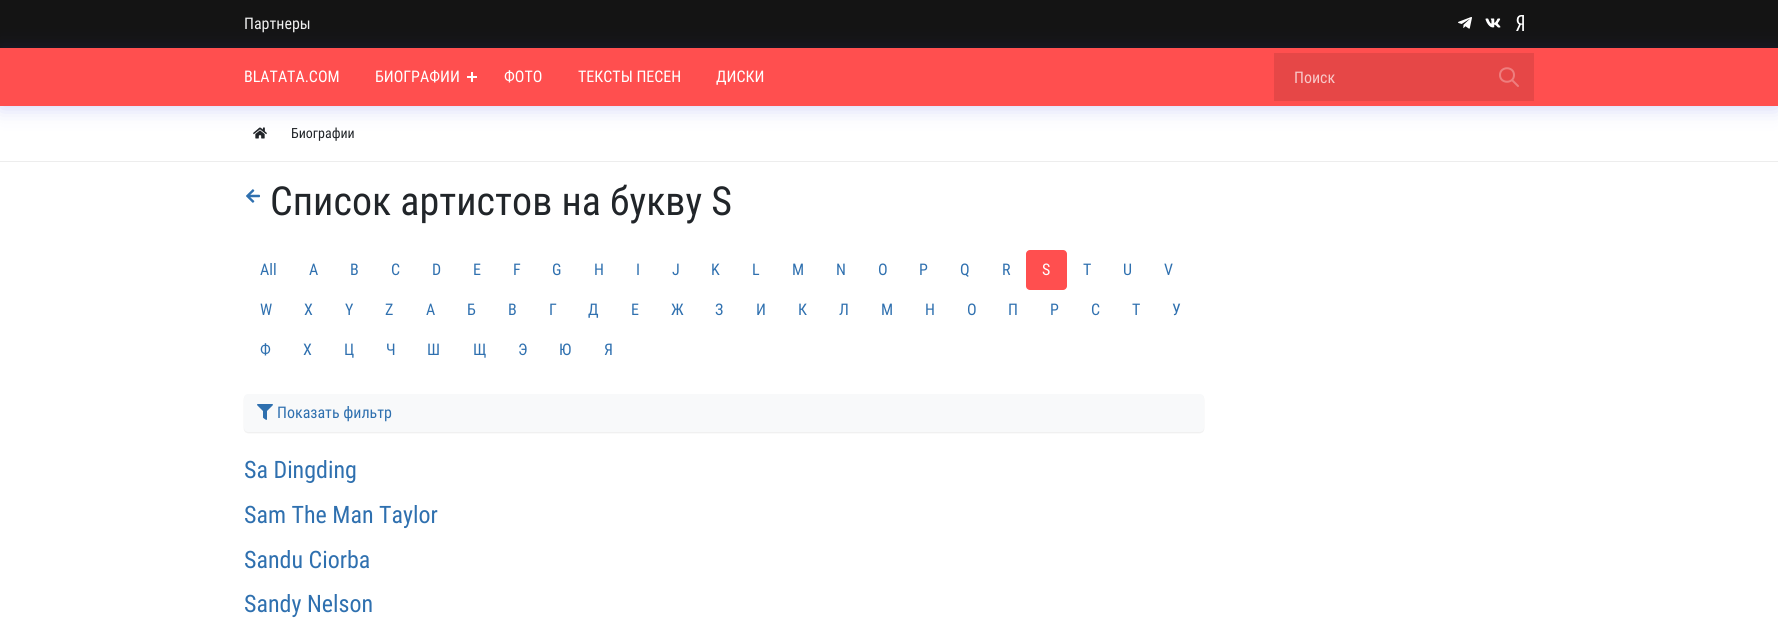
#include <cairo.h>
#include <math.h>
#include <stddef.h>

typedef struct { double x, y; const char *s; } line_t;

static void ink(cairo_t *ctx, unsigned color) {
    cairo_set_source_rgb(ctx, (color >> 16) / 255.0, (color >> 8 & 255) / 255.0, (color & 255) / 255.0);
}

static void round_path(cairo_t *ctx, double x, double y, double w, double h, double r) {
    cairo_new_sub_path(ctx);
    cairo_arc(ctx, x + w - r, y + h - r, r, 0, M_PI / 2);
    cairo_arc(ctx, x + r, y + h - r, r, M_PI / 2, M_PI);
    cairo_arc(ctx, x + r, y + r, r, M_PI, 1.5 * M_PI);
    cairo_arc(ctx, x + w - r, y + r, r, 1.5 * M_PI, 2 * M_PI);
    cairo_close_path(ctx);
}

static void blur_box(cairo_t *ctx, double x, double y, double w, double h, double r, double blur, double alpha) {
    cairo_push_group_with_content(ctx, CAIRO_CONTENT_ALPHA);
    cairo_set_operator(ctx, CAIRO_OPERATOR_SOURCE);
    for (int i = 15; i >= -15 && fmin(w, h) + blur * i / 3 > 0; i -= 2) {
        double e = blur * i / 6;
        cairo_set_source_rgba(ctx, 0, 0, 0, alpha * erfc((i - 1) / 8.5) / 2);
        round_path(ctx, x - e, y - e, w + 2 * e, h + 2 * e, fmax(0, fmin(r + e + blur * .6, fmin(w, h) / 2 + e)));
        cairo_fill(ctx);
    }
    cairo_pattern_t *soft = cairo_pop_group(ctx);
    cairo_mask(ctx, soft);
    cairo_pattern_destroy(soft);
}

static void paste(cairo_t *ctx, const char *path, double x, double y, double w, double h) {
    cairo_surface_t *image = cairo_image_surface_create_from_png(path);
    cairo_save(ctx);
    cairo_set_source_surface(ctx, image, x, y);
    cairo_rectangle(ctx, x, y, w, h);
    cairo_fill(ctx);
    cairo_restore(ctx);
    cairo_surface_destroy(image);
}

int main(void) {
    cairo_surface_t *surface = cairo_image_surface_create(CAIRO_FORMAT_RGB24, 1778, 627);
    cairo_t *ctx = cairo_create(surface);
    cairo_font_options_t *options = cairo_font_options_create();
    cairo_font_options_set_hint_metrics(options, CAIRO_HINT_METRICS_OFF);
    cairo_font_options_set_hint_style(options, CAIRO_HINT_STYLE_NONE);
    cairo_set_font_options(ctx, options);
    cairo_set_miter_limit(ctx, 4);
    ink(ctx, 0xFFFFFF);
    cairo_paint(ctx);
    ink(ctx, 0x141414);
    cairo_rectangle(ctx, 0, 0, 1778, 48);
    cairo_fill(ctx);
    paste(ctx, "media/4.png", 253, 127, 14, 12);
    ink(ctx, 0x2E38DC);
    blur_box(ctx, 0, 51, 1778, 58, 0, 10, 0.2);
    cairo_select_font_face(ctx, "Roboto Condensed", CAIRO_FONT_SLANT_NORMAL, CAIRO_FONT_WEIGHT_NORMAL);
    cairo_set_font_size(ctx, 16);
    ink(ctx, 0xF0F0F0);
    cairo_move_to(ctx, 244, 29);
    cairo_show_text(ctx, "Партнеры");
    paste(ctx, "media/1.png", 1458, 17, 14, 12);
    paste(ctx, "media/2.png", 1485, 18, 16, 10);
    paste(ctx, "media/3.png", 1516, 15, 8, 16);
    ink(ctx, 0xFF4F4F);
    cairo_rectangle(ctx, 0, 48, 1778, 58);
    cairo_fill(ctx);
    ink(ctx, 0xFFFFFF);
    cairo_move_to(ctx, 244, 82);
    cairo_show_text(ctx, "BLATATA.COM");
    cairo_move_to(ctx, 375, 82);
    cairo_show_text(ctx, "БИОГРАФИИ");
    cairo_rectangle(ctx, 471, 72, 2, 10);
    cairo_fill(ctx);
    cairo_rectangle(ctx, 467, 76, 10, 2);
    cairo_fill(ctx);
    {
        static const line_t items[] = {
            {504, 82, "ФОТО"},
            {578, 82, "ТЕКСТЫ ПЕСЕН"},
            {716, 82, "ДИСКИ"},
        };
        for (size_t i = 0; i < sizeof items / sizeof *items; i++) {
            cairo_move_to(ctx, items[i].x, items[i].y);
            cairo_show_text(ctx, items[i].s);
        }
    }
    ink(ctx, 0xE64747);
    cairo_rectangle(ctx, 1274, 53, 260, 48);
    cairo_fill(ctx);
    ink(ctx, 0xF8C8C8);
    cairo_move_to(ctx, 1294, 83);
    cairo_show_text(ctx, "Поиск");
    cairo_new_path(ctx);
    cairo_move_to(ctx, 1518, 86);
    cairo_line_to(ctx, 1512, 80);
    cairo_move_to(ctx, 1514, 75);
    cairo_curve_to(ctx, 1514, 84, 1500, 84, 1500, 75);
    cairo_curve_to(ctx, 1500, 66, 1514, 66, 1514, 75);
    cairo_close_path(ctx);
    ink(ctx, 0xEE7E7E);
    cairo_set_line_cap(ctx, CAIRO_LINE_CAP_ROUND);
    cairo_set_line_join(ctx, CAIRO_LINE_JOIN_ROUND);
    cairo_stroke(ctx);
    ink(ctx, 0xEDEDED);
    cairo_rectangle(ctx, 0, 161, 1778, 1);
    cairo_fill(ctx);
    cairo_set_font_size(ctx, 14);
    ink(ctx, 0x212529);
    cairo_move_to(ctx, 291, 138);
    cairo_show_text(ctx, "Биографии");
    paste(ctx, "media/5.png", 246, 189, 14, 14);
    cairo_set_font_size(ctx, 40);
    cairo_move_to(ctx, 270, 215);
    cairo_show_text(ctx, "Список артистов на букву S");
    cairo_set_font_size(ctx, 16);
    ink(ctx, 0x2F70AF);
    {
        static const line_t items[] = {
            {260, 275, "All"},
            {309, 275, "A"},
            {350, 275, "B"},
            {391, 275, "C"},
            {432, 275, "D"},
            {473, 275, "E"},
            {513, 275, "F"},
            {552, 275, "G"},
            {594, 275, "H"},
            {636, 275, "I"},
            {672, 275, "J"},
            {711, 275, "K"},
            {752, 275, "L"},
            {792, 275, "M"},
            {836, 275, "N"},
            {878, 275, "O"},
            {919, 275, "P"},
            {960, 275, "Q"},
            {1002, 275, "R"},
        };
        for (size_t i = 0; i < sizeof items / sizeof *items; i++) {
            cairo_move_to(ctx, items[i].x, items[i].y);
            cairo_show_text(ctx, items[i].s);
        }
    }
    ink(ctx, 0xFF4F4F);
    round_path(ctx, 1026, 250, 41, 40, 4);
    cairo_fill(ctx);
    ink(ctx, 0xFFFFFF);
    cairo_move_to(ctx, 1042, 275);
    cairo_show_text(ctx, "S");
    ink(ctx, 0x2F70AF);
    {
        static const line_t items[] = {
            {1083, 275, "T"},
            {1123, 275, "U"},
            {1164, 275, "V"},
            {260, 315, "W"},
            {304, 315, "X"},
            {345, 315, "Y"},
            {385, 315, "Z"},
            {426, 315, "А"},
            {467, 315, "Б"},
            {508, 315, "В"},
            {549, 315, "Г"},
            {588, 315, "Д"},
            {631, 315, "Е"},
            {671, 315, "Ж"},
            {715, 315, "З"},
            {756, 315, "И"},
            {798, 315, "К"},
            {839, 315, "Л"},
            {881, 315, "М"},
            {925, 315, "Н"},
            {967, 315, "О"},
            {1008, 315, "П"},
            {1050, 315, "Р"},
            {1091, 315, "С"},
            {1132, 315, "Т"},
            {1172, 315, "У"},
            {260, 355, "Ф"},
            {303, 355, "Х"},
            {344, 355, "Ц"},
            {386, 355, "Ч"},
            {427, 355, "Ш"},
            {473, 355, "Щ"},
            {518, 355, "Э"},
            {559, 355, "Ю"},
            {604, 355, "Я"},
        };
        for (size_t i = 0; i < sizeof items / sizeof *items; i++) {
            cairo_move_to(ctx, items[i].x, items[i].y);
            cairo_show_text(ctx, items[i].s);
        }
    }
    ink(ctx, 0x000000);
    blur_box(ctx, 244, 395, 960, 38, 4, 0.5, 0.07);
    ink(ctx, 0xF8F9FA);
    round_path(ctx, 244, 394, 960, 38, 4);
    cairo_fill(ctx);
    paste(ctx, "media/6.png", 257, 404, 16, 16);
    ink(ctx, 0x2F70AF);
    cairo_move_to(ctx, 277, 418);
    cairo_show_text(ctx, "Показать фильтр");
    cairo_set_font_size(ctx, 24);
    {
        static const line_t items[] = {
            {244, 478, "Sa Dingding"},
            {244, 523, "Sam The Man Taylor"},
            {244, 568, "Sandu Ciorba"},
            {244, 612, "Sandy Nelson"},
        };
        for (size_t i = 0; i < sizeof items / sizeof *items; i++) {
            cairo_move_to(ctx, items[i].x, items[i].y);
            cairo_show_text(ctx, items[i].s);
        }
    }
    cairo_surface_write_to_png(surface, "image.png");
    cairo_font_options_destroy(options);
    cairo_destroy(ctx);
    cairo_surface_destroy(surface);
    return 0;
}
